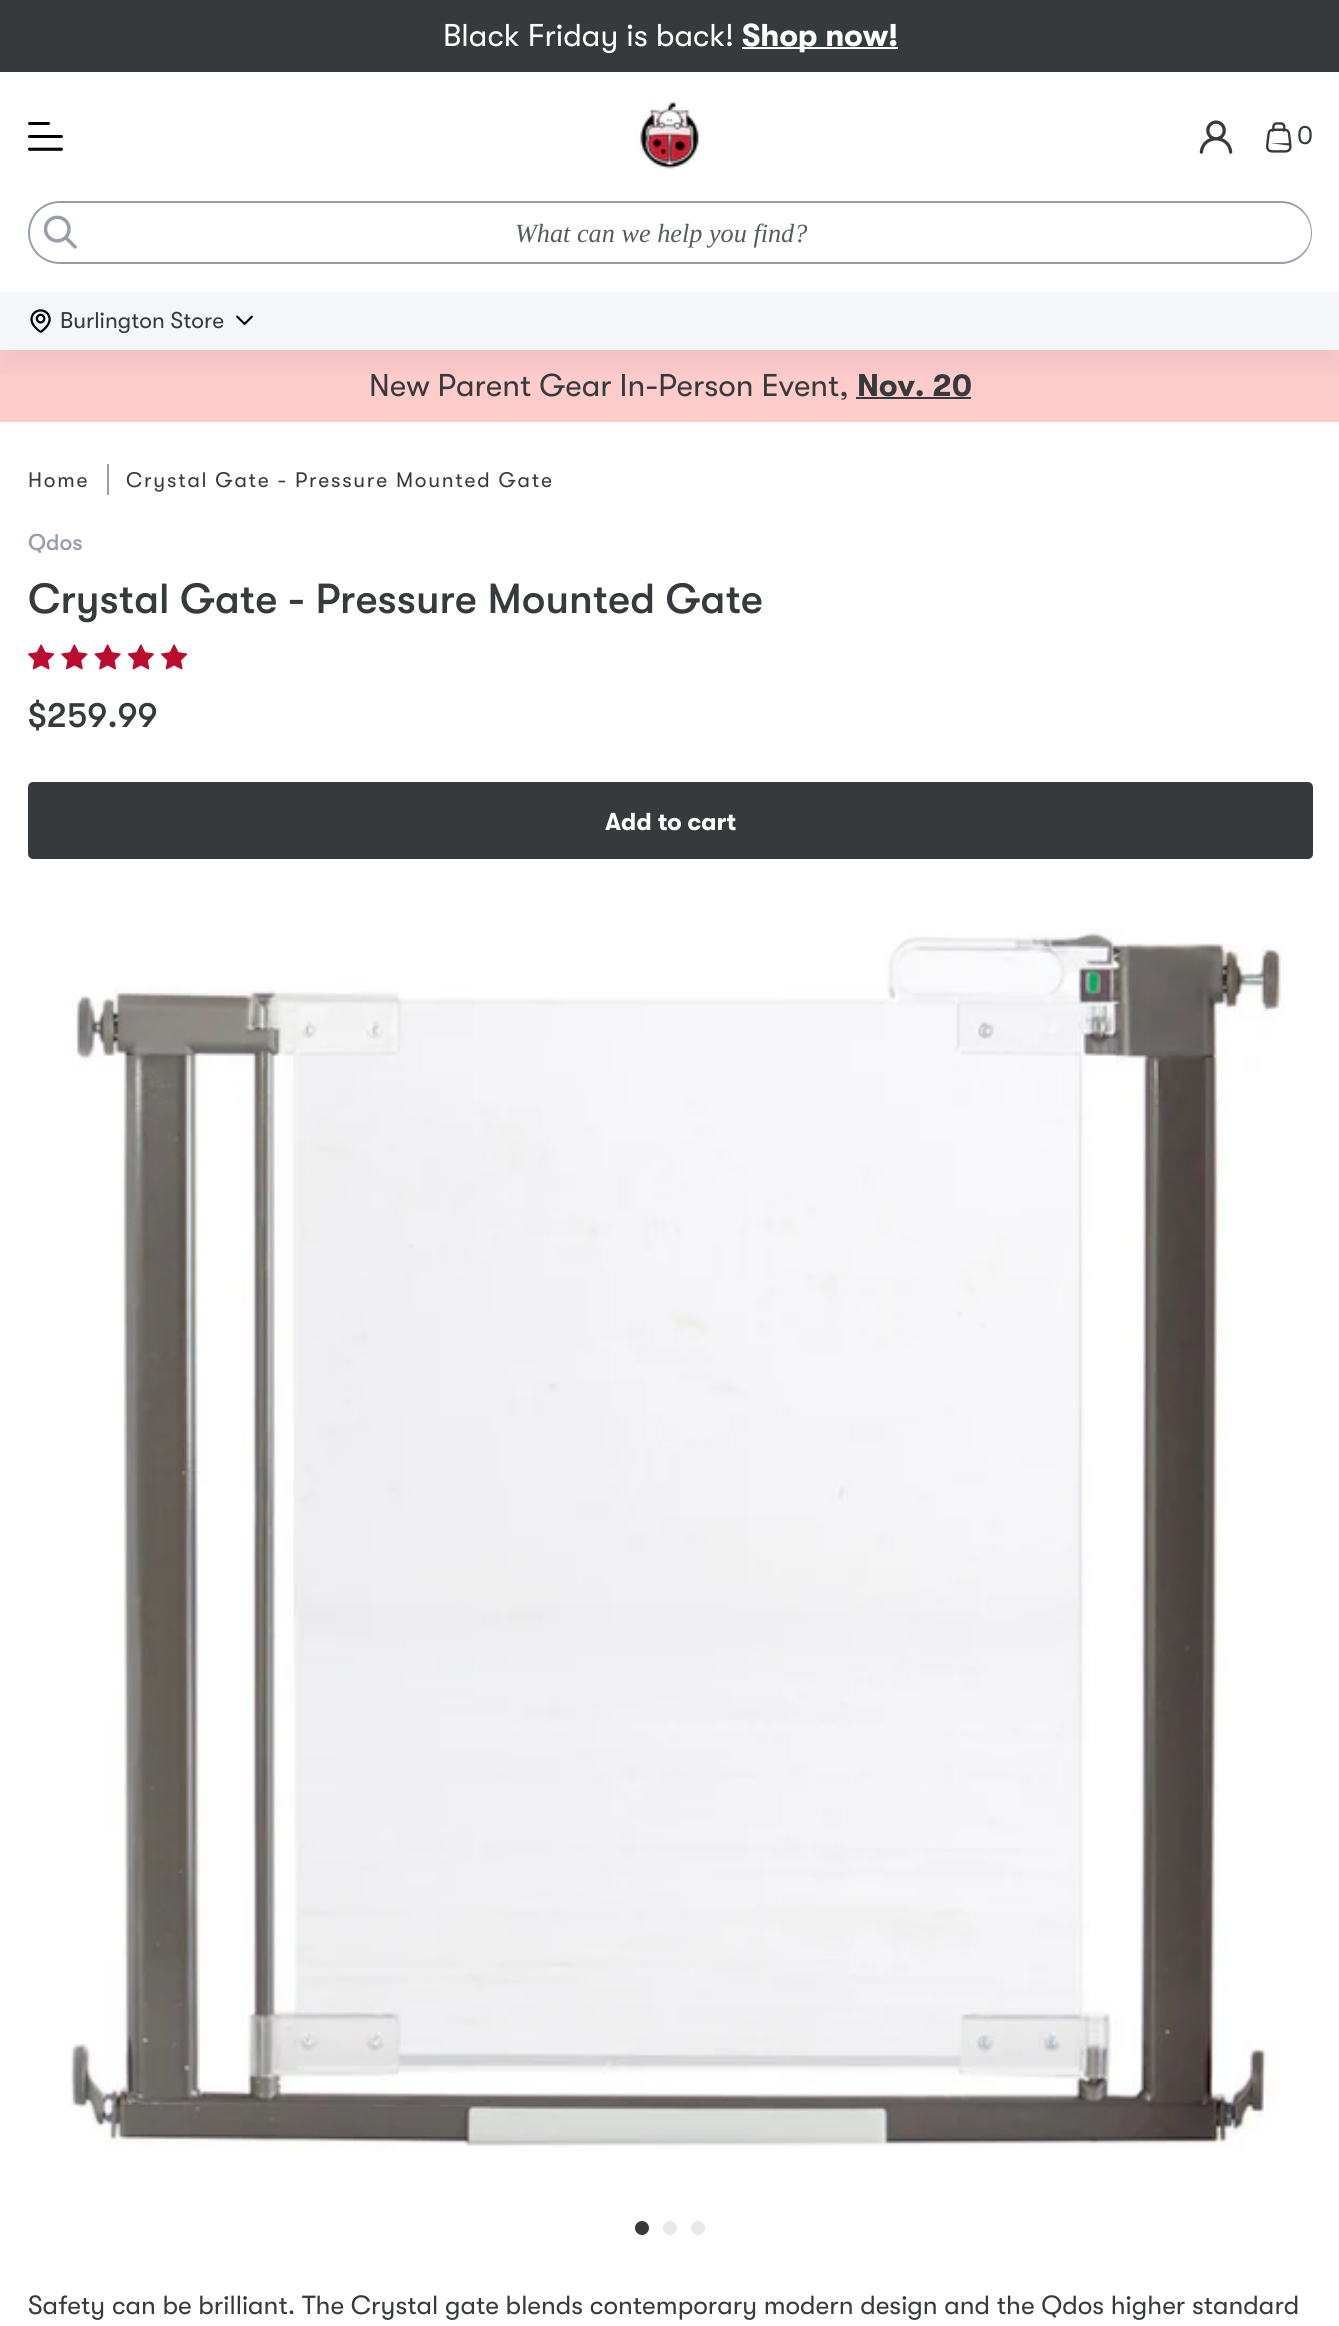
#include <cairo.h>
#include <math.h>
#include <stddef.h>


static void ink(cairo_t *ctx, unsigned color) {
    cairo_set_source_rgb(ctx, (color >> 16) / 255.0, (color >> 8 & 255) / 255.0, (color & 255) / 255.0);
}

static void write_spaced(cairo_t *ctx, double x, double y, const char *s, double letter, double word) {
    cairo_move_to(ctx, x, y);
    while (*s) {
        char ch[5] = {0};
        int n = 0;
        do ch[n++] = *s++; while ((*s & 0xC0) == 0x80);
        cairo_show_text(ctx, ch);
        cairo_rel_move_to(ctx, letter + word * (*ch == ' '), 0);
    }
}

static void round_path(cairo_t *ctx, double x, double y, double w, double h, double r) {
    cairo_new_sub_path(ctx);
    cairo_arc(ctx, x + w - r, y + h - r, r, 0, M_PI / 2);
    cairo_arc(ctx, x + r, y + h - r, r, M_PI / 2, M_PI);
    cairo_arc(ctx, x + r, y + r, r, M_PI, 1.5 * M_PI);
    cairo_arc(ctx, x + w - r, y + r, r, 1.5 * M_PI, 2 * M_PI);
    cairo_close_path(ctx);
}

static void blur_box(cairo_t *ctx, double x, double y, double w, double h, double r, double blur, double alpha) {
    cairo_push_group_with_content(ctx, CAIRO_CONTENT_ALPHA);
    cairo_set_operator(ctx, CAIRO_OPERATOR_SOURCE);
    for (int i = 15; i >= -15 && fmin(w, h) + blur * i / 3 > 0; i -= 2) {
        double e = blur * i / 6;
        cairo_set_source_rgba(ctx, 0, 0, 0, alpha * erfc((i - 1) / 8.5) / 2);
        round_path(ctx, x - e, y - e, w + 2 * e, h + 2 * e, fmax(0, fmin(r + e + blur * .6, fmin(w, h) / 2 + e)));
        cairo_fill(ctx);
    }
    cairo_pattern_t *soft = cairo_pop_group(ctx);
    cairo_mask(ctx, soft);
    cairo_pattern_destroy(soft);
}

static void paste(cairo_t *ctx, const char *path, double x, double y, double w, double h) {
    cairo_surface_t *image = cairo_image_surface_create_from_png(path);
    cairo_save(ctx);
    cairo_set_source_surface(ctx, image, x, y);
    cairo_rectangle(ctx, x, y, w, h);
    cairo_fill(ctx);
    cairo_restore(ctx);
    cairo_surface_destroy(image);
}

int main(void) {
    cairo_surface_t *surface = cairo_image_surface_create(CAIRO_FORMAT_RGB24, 1339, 2326);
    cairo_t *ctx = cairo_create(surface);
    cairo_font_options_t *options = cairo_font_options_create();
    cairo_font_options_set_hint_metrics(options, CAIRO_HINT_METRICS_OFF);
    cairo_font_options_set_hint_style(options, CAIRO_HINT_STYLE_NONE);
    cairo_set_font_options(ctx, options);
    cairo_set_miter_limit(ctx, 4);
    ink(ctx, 0xFFFFFF);
    cairo_paint(ctx);
    ink(ctx, 0x373A3C);
    cairo_rectangle(ctx, 0, 0, 1339, 72);
    cairo_fill(ctx);
    cairo_select_font_face(ctx, "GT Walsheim", CAIRO_FONT_SLANT_NORMAL, CAIRO_FONT_WEIGHT_NORMAL);
    cairo_set_font_size(ctx, 31.5);
    ink(ctx, 0xFFFFFF);
    cairo_move_to(ctx, 443, 46);
    cairo_show_text(ctx, "Black Friday is back!");
    cairo_rectangle(ctx, 742, 47, 156, 2);
    cairo_fill(ctx);
    cairo_select_font_face(ctx, "GT Walsheim", CAIRO_FONT_SLANT_NORMAL, CAIRO_FONT_WEIGHT_BOLD);
    cairo_move_to(ctx, 742, 46);
    cairo_show_text(ctx, "Shop now!");
    ink(ctx, 0xFFCCCC);
    cairo_rectangle(ctx, 0, 350, 1339, 72);
    cairo_fill(ctx);
    ink(ctx, 0x373A3C);
    cairo_rectangle(ctx, 856, 397, 115, 2);
    cairo_fill(ctx);
    cairo_save(ctx);
    cairo_rectangle(ctx, 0, 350, 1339, 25);
    cairo_clip(ctx);
    ink(ctx, 0x000000);
    blur_box(ctx, 0, 93, 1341, 278, 0, 16, 0.05);
    cairo_restore(ctx);
    paste(ctx, "media/1.png", 28, 122, 35, 29);
    paste(ctx, "media/2.png", 634, 101, 69, 69);
    paste(ctx, "media/3.png", 1199, 120, 34, 34);
    paste(ctx, "media/4.png", 1266, 122, 26, 31);
    cairo_select_font_face(ctx, "GT Walsheim", CAIRO_FONT_SLANT_NORMAL, CAIRO_FONT_WEIGHT_NORMAL);
    cairo_set_font_size(ctx, 26.25);
    cairo_move_to(ctx, 1297, 144);
    cairo_show_text(ctx, "0");
    ink(ctx, 0x979DAB);
    cairo_set_fill_rule(ctx, CAIRO_FILL_RULE_EVEN_ODD);
    cairo_new_path(ctx);
    cairo_move_to(ctx, 60, 201);
    cairo_line_to(ctx, 93, 201);
    cairo_line_to(ctx, 93, 264);
    cairo_line_to(ctx, 60, 264);
    cairo_curve_to(ctx, 42, 264, 28, 250, 28, 233);
    cairo_curve_to(ctx, 28, 215, 42, 201, 60, 201);
    cairo_close_path(ctx);
    cairo_move_to(ctx, 60, 203);
    cairo_line_to(ctx, 93, 203);
    cairo_line_to(ctx, 93, 262);
    cairo_line_to(ctx, 60, 262);
    cairo_curve_to(ctx, 43, 262, 30, 249, 30, 233);
    cairo_curve_to(ctx, 30, 216, 43, 203, 60, 203);
    cairo_close_path(ctx);
    cairo_fill(ctx);
    paste(ctx, "media/5.png", 44, 215, 33, 34);
    cairo_new_path(ctx);
    cairo_move_to(ctx, 93, 201);
    cairo_line_to(ctx, 1281, 201);
    cairo_curve_to(ctx, 1298, 201, 1312, 215, 1312, 233);
    cairo_curve_to(ctx, 1312, 250, 1298, 264, 1281, 264);
    cairo_line_to(ctx, 93, 264);
    cairo_close_path(ctx);
    cairo_move_to(ctx, 93, 203);
    cairo_line_to(ctx, 1281, 203);
    cairo_curve_to(ctx, 1297, 203, 1311, 216, 1311, 233);
    cairo_curve_to(ctx, 1311, 249, 1297, 262, 1281, 262);
    cairo_line_to(ctx, 93, 262);
    cairo_close_path(ctx);
    cairo_fill(ctx);
    cairo_select_font_face(ctx, "Liberation Serif", CAIRO_FONT_SLANT_ITALIC, CAIRO_FONT_WEIGHT_NORMAL);
    ink(ctx, 0x565B5E);
    cairo_move_to(ctx, 515, 242);
    cairo_show_text(ctx, "What can we help you find?");
    ink(ctx, 0xF4F6FA);
    cairo_rectangle(ctx, 0, 292, 1339, 58);
    cairo_fill(ctx);
    paste(ctx, "media/6.png", 30, 309, 21, 24);
    cairo_select_font_face(ctx, "GT Walsheim", CAIRO_FONT_SLANT_NORMAL, CAIRO_FONT_WEIGHT_NORMAL);
    cairo_set_font_size(ctx, 22.75);
    ink(ctx, 0x373A3C);
    cairo_move_to(ctx, 60, 328);
    cairo_show_text(ctx, "Burlington Store");
    paste(ctx, "media/7.png", 236, 315, 17, 10);
    cairo_set_font_size(ctx, 31.5);
    cairo_move_to(ctx, 369, 396);
    cairo_show_text(ctx, "New Parent Gear In-Person Event,");
    cairo_select_font_face(ctx, "GT Walsheim", CAIRO_FONT_SLANT_NORMAL, CAIRO_FONT_WEIGHT_BOLD);
    cairo_move_to(ctx, 857, 396);
    cairo_show_text(ctx, "Nov. 20");
    cairo_select_font_face(ctx, "GT Walsheim", CAIRO_FONT_SLANT_NORMAL, CAIRO_FONT_WEIGHT_NORMAL);
    cairo_set_font_size(ctx, 21);
    write_spaced(ctx, 28, 487, "Home", 1.75, 0);
    ink(ctx, 0x979DAB);
    cairo_rectangle(ctx, 107, 464, 2, 31);
    cairo_fill(ctx);
    ink(ctx, 0x373A3C);
    write_spaced(ctx, 126, 487, "Crystal Gate - Pressure Mounted Gate", 1.75, 0);
    cairo_select_font_face(ctx, "GT Walsheim Medium", CAIRO_FONT_SLANT_NORMAL, CAIRO_FONT_WEIGHT_NORMAL);
    cairo_set_font_size(ctx, 22.75);
    ink(ctx, 0x979DAB);
    cairo_move_to(ctx, 28, 550);
    cairo_show_text(ctx, "Qdos");
    cairo_set_font_size(ctx, 42);
    ink(ctx, 0x373A3C);
    cairo_move_to(ctx, 28, 613);
    cairo_show_text(ctx, "Crystal Gate - Pressure Mounted Gate");
    paste(ctx, "media/8.png", 28, 644, 27, 26);
    paste(ctx, "media/9.png", 61, 644, 27, 26);
    paste(ctx, "media/10.png", 94, 644, 27, 26);
    paste(ctx, "media/11.png", 127, 644, 27, 26);
    paste(ctx, "media/8.png", 161, 644, 27, 26);
    cairo_set_font_size(ctx, 35);
    cairo_move_to(ctx, 28, 727);
    cairo_show_text(ctx, "$259.99");
    round_path(ctx, 30, 784, 1281, 73, 3);
    cairo_fill_preserve(ctx);
    cairo_set_line_width(ctx, 4);
    cairo_stroke(ctx);
    cairo_select_font_face(ctx, "GT Walsheim", CAIRO_FONT_SLANT_NORMAL, CAIRO_FONT_WEIGHT_BOLD);
    cairo_set_font_size(ctx, 24.5);
    ink(ctx, 0xFFFFFF);
    cairo_move_to(ctx, 605, 830);
    cairo_show_text(ctx, "Add to cart");
    paste(ctx, "media/12.png", 70, 929, 1214, 1222);
    ink(ctx, 0x373A3C);
    cairo_arc(ctx, 642, 2228, 7, 0, 2 * M_PI);
    cairo_fill(ctx);
    ink(ctx, 0xE7E8EA);
    cairo_arc(ctx, 670, 2228, 7, 0, 2 * M_PI);
    cairo_fill(ctx);
    cairo_arc(ctx, 698, 2228, 7, 0, 2 * M_PI);
    cairo_fill(ctx);
    cairo_select_font_face(ctx, "GT Walsheim", CAIRO_FONT_SLANT_NORMAL, CAIRO_FONT_WEIGHT_NORMAL);
    cairo_set_font_size(ctx, 26.25);
    ink(ctx, 0x373A3C);
    cairo_move_to(ctx, 28, 2314);
    cairo_show_text(ctx, "Safety can be brilliant. The Crystal gate blends contemporary modern design and the Qdos higher standard");
    cairo_surface_write_to_png(surface, "image.png");
    cairo_font_options_destroy(options);
    cairo_destroy(ctx);
    cairo_surface_destroy(surface);
    return 0;
}
